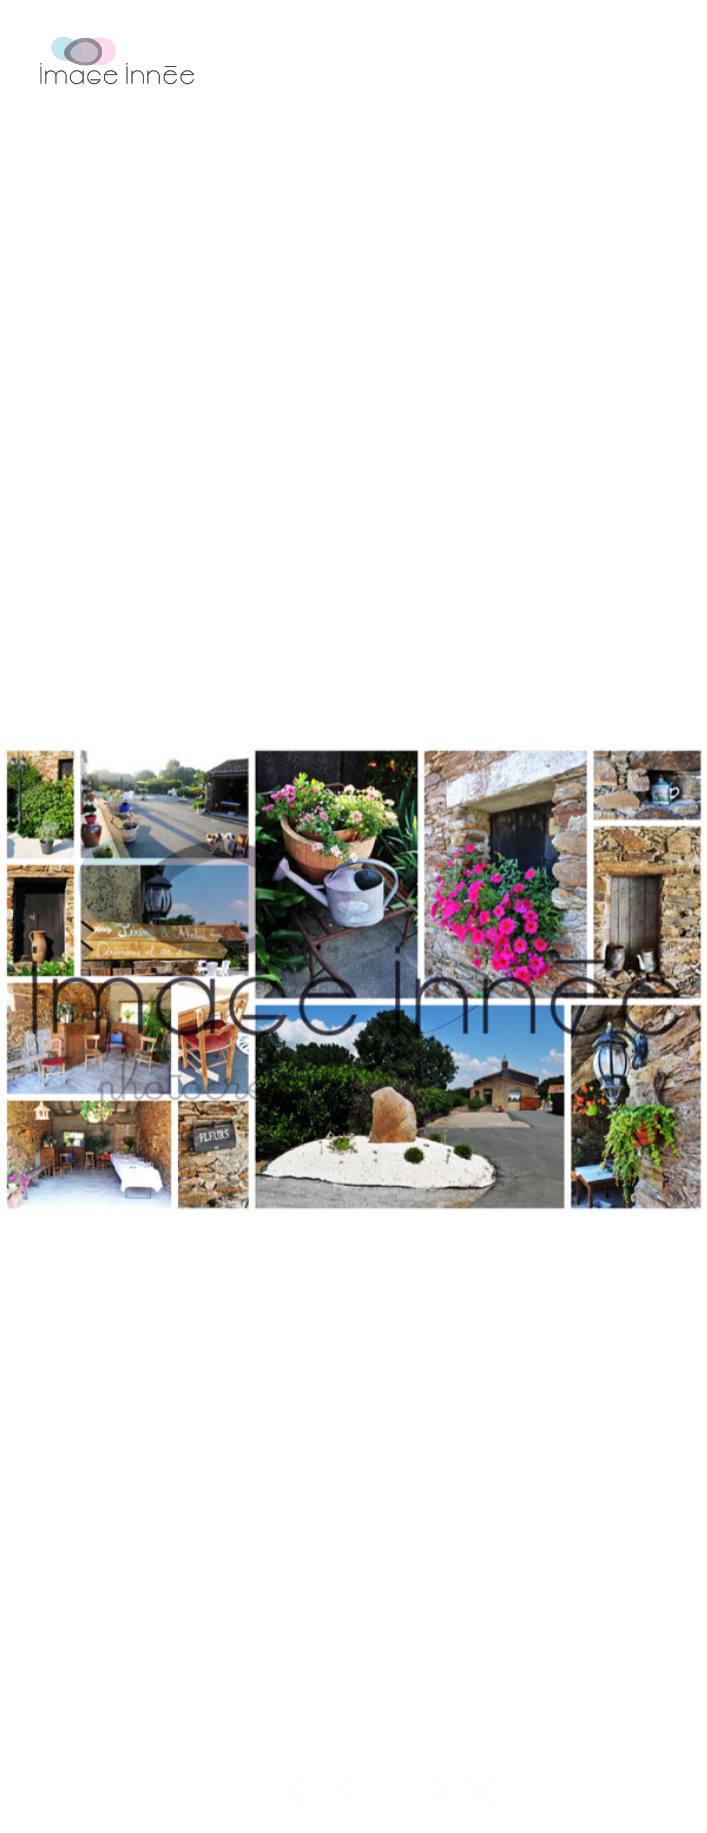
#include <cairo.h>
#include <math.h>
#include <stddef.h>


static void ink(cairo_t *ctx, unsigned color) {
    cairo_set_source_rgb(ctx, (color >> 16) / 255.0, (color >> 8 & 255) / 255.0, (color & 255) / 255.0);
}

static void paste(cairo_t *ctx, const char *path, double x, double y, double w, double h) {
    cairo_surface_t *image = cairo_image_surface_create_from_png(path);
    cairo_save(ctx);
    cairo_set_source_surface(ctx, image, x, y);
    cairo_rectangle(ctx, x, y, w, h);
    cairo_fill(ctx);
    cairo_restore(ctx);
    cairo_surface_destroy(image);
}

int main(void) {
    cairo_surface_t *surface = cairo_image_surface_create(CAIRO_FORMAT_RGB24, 707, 1833);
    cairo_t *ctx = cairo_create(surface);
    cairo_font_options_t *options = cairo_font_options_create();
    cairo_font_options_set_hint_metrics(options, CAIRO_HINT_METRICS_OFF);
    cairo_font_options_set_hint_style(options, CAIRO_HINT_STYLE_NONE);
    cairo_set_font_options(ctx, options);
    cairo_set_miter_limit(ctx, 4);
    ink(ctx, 0xFFFFFF);
    cairo_paint(ctx);
    paste(ctx, "media/1.png", 40, 36, 154, 49);
    paste(ctx, "media/2.png", 0, 744, 707, 471);
    paste(ctx, "media/3.png", 288, 1776, 19, 28);
    paste(ctx, "media/4.png", 338, 1778, 14, 26);
    paste(ctx, "media/5.png", 387, 1780, 11, 20);
    paste(ctx, "media/6.png", 432, 1777, 14, 27);
    paste(ctx, "media/7.png", 465, 1776, 28, 28);
    cairo_surface_write_to_png(surface, "image.png");
    cairo_font_options_destroy(options);
    cairo_destroy(ctx);
    cairo_surface_destroy(surface);
    return 0;
}
